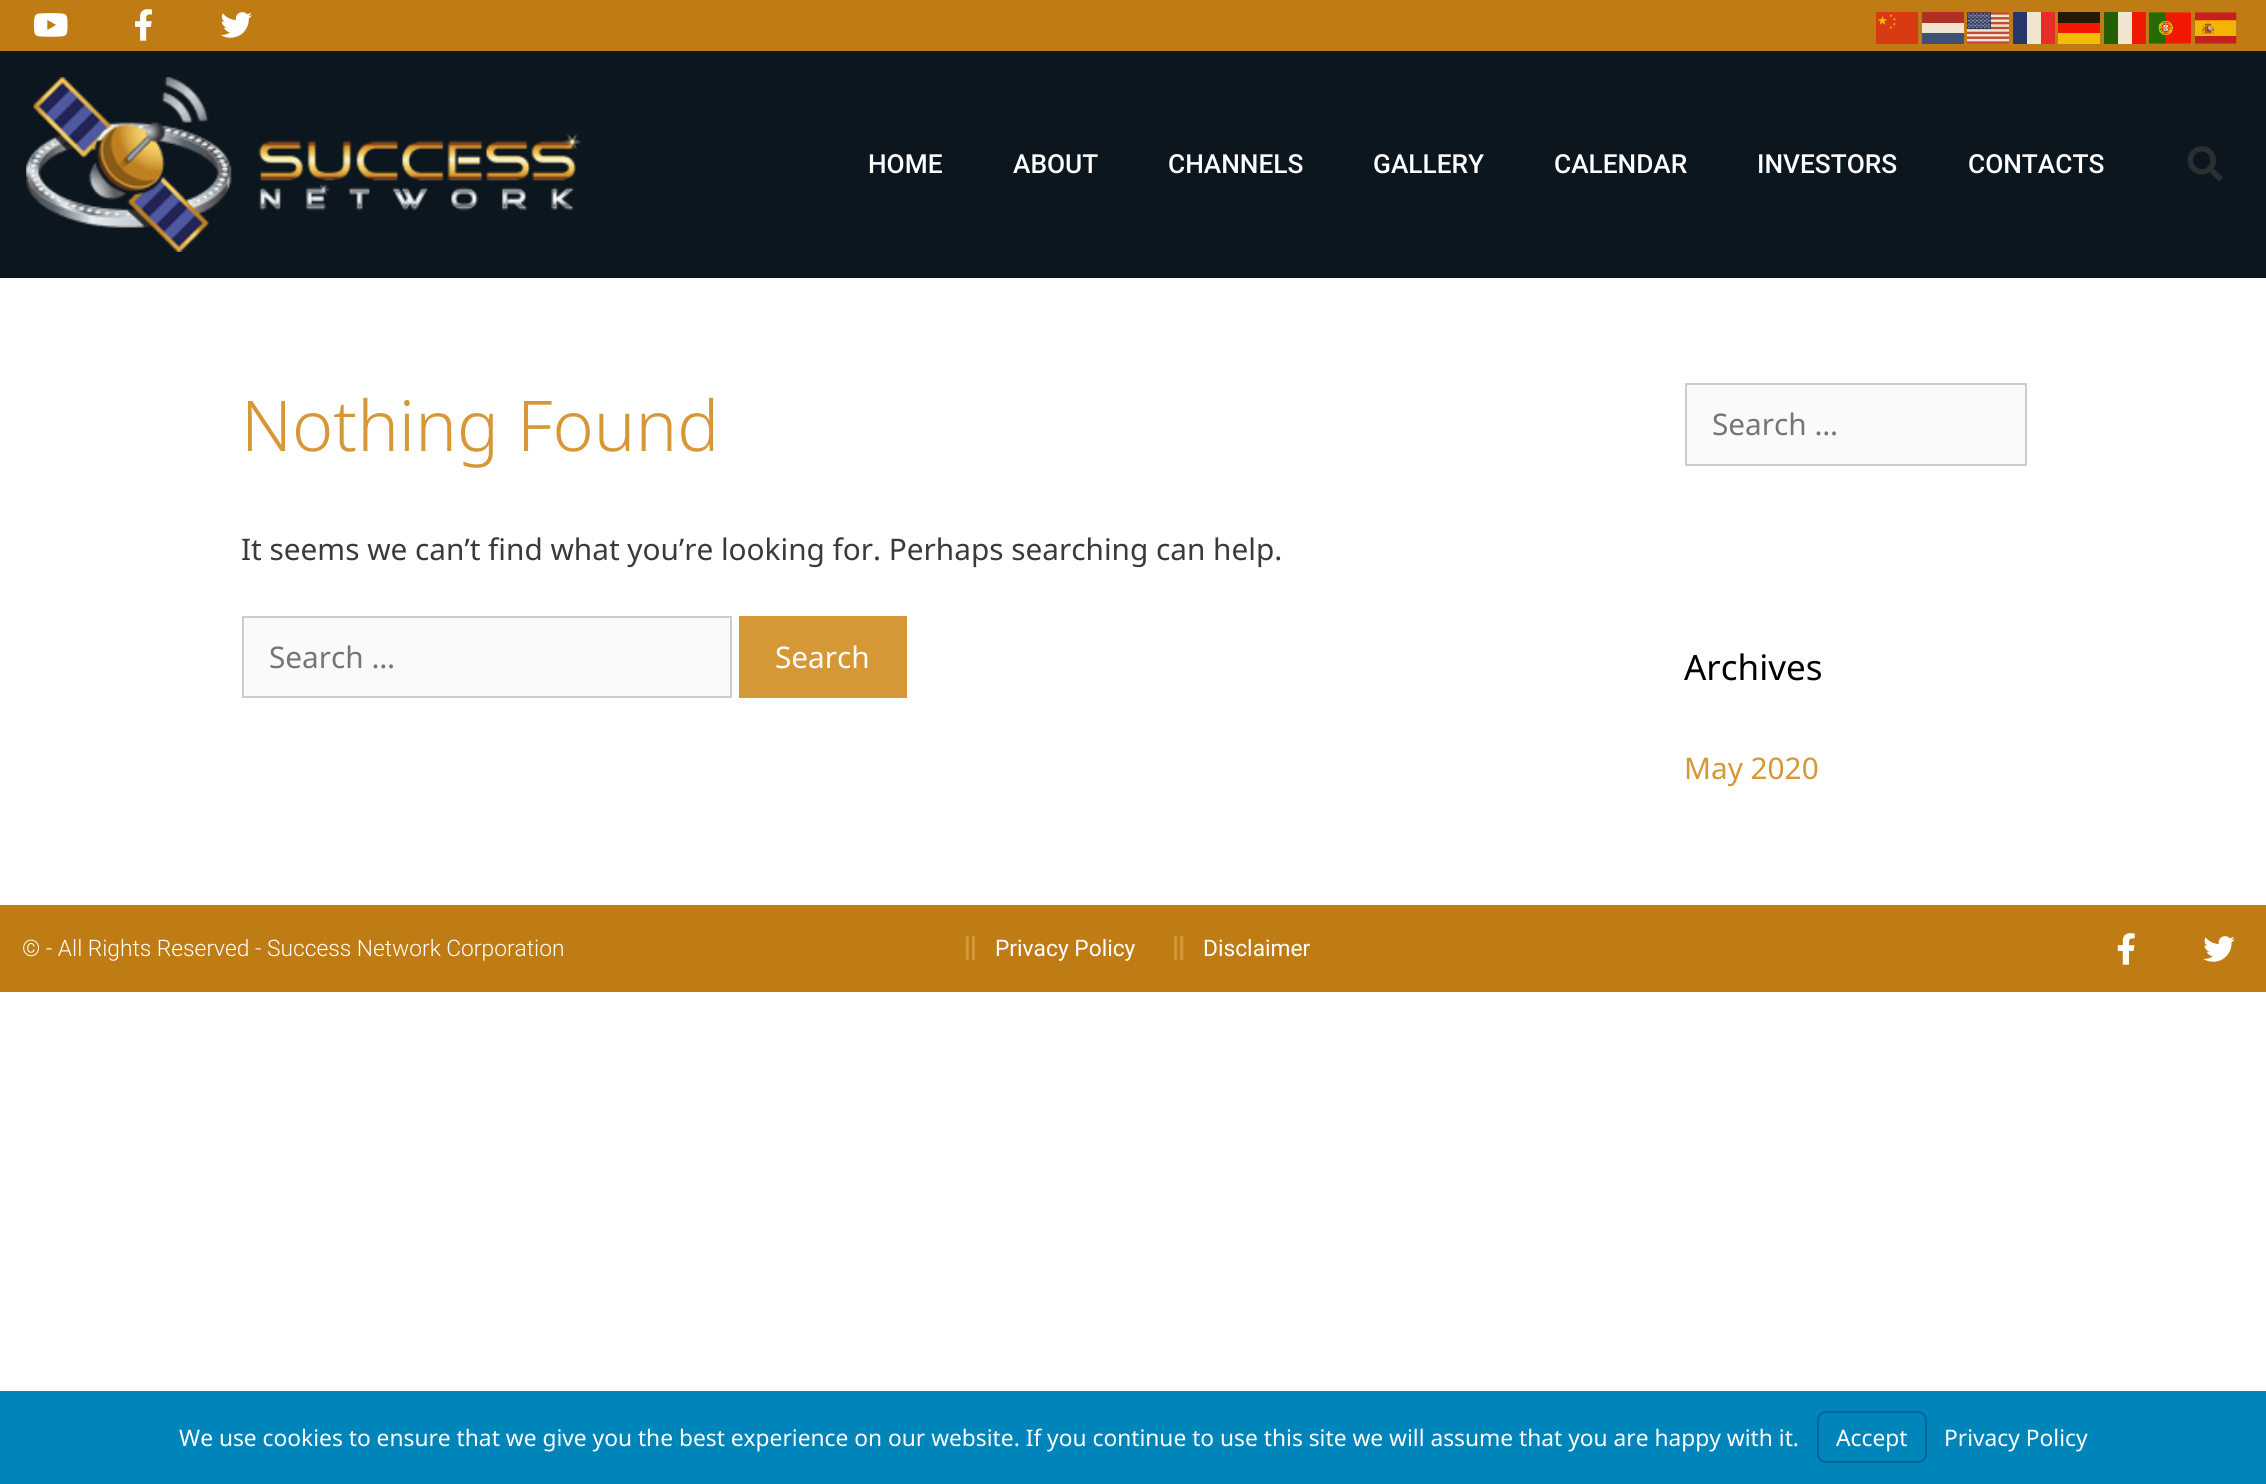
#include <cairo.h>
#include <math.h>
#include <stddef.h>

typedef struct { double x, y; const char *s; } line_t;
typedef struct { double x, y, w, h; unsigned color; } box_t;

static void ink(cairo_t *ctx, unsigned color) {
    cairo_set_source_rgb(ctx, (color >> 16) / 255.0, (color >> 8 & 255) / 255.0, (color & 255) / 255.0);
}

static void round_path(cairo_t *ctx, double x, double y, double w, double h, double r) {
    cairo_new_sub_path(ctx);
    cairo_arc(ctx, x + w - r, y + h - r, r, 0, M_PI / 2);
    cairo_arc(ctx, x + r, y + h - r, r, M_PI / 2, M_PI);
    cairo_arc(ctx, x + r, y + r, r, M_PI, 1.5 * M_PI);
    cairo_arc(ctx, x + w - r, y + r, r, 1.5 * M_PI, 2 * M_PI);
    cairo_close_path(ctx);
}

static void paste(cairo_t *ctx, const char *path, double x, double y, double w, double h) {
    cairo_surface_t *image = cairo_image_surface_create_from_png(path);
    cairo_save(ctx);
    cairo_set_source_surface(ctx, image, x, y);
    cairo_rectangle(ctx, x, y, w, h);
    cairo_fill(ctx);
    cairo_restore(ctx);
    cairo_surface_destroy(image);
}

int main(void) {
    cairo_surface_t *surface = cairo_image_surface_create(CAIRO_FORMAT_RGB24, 2266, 1484);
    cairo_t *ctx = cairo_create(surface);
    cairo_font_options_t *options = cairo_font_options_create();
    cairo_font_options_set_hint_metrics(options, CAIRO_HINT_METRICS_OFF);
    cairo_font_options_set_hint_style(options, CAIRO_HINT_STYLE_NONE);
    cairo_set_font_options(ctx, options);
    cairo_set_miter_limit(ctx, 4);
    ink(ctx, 0xFFFFFF);
    cairo_paint(ctx);
    ink(ctx, 0xC07C14);
    cairo_rectangle(ctx, 0, 0, 2266, 51);
    cairo_fill(ctx);
    paste(ctx, "media/1.png", 33, 13, 35, 24);
    paste(ctx, "media/2.png", 135, 9, 17, 32);
    paste(ctx, "media/3.png", 220, 12, 32, 26);
    paste(ctx, "media/4.png", 1876, 12, 42, 32);
    ink(ctx, 0xB22F24);
    cairo_rectangle(ctx, 1922, 12, 42, 11);
    cairo_fill(ctx);
    paste(ctx, "media/5.png", 1967, 12, 42, 32);
    {
        static const box_t items[] = {
            {2013, 12, 14, 32, 0x26376A},
            {2027, 12, 14, 32, 0xF2E5D0},
            {2041, 12, 14, 32, 0xE92C2A},
            {2058, 12, 42, 11, 0x261904},
            {2104, 12, 14, 32, 0x265E04},
            {2118, 12, 14, 32, 0xF2E5D0},
            {2132, 12, 14, 32, 0xF01904},
        };
        for (size_t i = 0; i < sizeof items / sizeof *items; i++) {
            ink(ctx, items[i].color);
            cairo_rectangle(ctx, items[i].x, items[i].y, items[i].w, items[i].h);
            cairo_fill(ctx);
        }
    }
    paste(ctx, "media/6.png", 2149, 12, 42, 32);
    paste(ctx, "media/7.png", 2195, 12, 42, 32);
    {
        static const box_t items[] = {
            {1922, 23, 42, 10, 0xF2E5D0},
            {2058, 23, 42, 10, 0xF21904},
            {1922, 33, 42, 11, 0x415173},
            {2058, 33, 42, 11, 0xF2BC04},
            {0, 51, 2266, 227, 0x0C161F},
        };
        for (size_t i = 0; i < sizeof items / sizeof *items; i++) {
            ink(ctx, items[i].color);
            cairo_rectangle(ctx, items[i].x, items[i].y, items[i].w, items[i].h);
            cairo_fill(ctx);
        }
    }
    paste(ctx, "media/8.png", 26, 77, 555, 175);
    cairo_select_font_face(ctx, "Roboto Medium", CAIRO_FONT_SLANT_NORMAL, CAIRO_FONT_WEIGHT_NORMAL);
    cairo_set_font_size(ctx, 26.25);
    ink(ctx, 0xFFFFFF);
    {
        static const line_t items[] = {
            {868, 173, "HOME"},
            {1013, 173, "ABOUT"},
            {1168, 173, "CHANNELS"},
            {1373, 173, "GALLERY"},
            {1554, 173, "CALENDAR"},
            {1757, 173, "INVESTORS"},
            {1968, 173, "CONTACTS"},
        };
        for (size_t i = 0; i < sizeof items / sizeof *items; i++) {
            cairo_move_to(ctx, items[i].x, items[i].y);
            cairo_show_text(ctx, items[i].s);
        }
    }
    paste(ctx, "media/9.png", 2187, 146, 36, 35);
    cairo_select_font_face(ctx, "Noto Sans Light", CAIRO_FONT_SLANT_NORMAL, CAIRO_FONT_WEIGHT_NORMAL);
    cairo_set_font_size(ctx, 70);
    ink(ctx, 0xD69737);
    cairo_move_to(ctx, 241, 451);
    cairo_show_text(ctx, "Nothing Found");
    cairo_select_font_face(ctx, "Noto Sans", CAIRO_FONT_SLANT_NORMAL, CAIRO_FONT_WEIGHT_NORMAL);
    cairo_set_font_size(ctx, 29.75);
    ink(ctx, 0x3A3A3A);
    cairo_move_to(ctx, 241, 560);
    cairo_show_text(ctx, "It seems we can’t find what you’re looking for. Perhaps searching can help.");
    ink(ctx, 0xFAFAFA);
    cairo_rectangle(ctx, 243, 617, 488, 80);
    cairo_fill_preserve(ctx);
    ink(ctx, 0xCCCCCC);
    cairo_stroke(ctx);
    ink(ctx, 0x757575);
    cairo_move_to(ctx, 269, 668);
    cairo_show_text(ctx, "Search …");
    ink(ctx, 0xD69737);
    cairo_rectangle(ctx, 739, 616, 168, 82);
    cairo_fill(ctx);
    ink(ctx, 0xFFFFFF);
    cairo_move_to(ctx, 775, 668);
    cairo_show_text(ctx, "Search");
    ink(ctx, 0xFAFAFA);
    cairo_rectangle(ctx, 1686, 384, 340, 81);
    cairo_fill_preserve(ctx);
    ink(ctx, 0xCCCCCC);
    cairo_stroke(ctx);
    ink(ctx, 0x757575);
    cairo_move_to(ctx, 1712, 435);
    cairo_show_text(ctx, "Search …");
    cairo_set_font_size(ctx, 35);
    ink(ctx, 0x000000);
    cairo_move_to(ctx, 1684, 680);
    cairo_show_text(ctx, "Archives");
    cairo_set_font_size(ctx, 29.75);
    ink(ctx, 0xD69737);
    cairo_move_to(ctx, 1684, 779);
    cairo_show_text(ctx, "May 2020");
    ink(ctx, 0xC07C14);
    cairo_rectangle(ctx, 0, 905, 2266, 87);
    cairo_fill(ctx);
    cairo_select_font_face(ctx, "Roboto Light", CAIRO_FONT_SLANT_NORMAL, CAIRO_FONT_WEIGHT_NORMAL);
    cairo_set_font_size(ctx, 22.75);
    ink(ctx, 0xFFFFFF);
    cairo_move_to(ctx, 22, 956);
    cairo_show_text(ctx, "© - All Rights Reserved - Success Network Corporation");
    paste(ctx, "media/10.png", 965, 935, 10, 26);
    cairo_select_font_face(ctx, "Roboto", CAIRO_FONT_SLANT_NORMAL, CAIRO_FONT_WEIGHT_NORMAL);
    cairo_move_to(ctx, 995, 956);
    cairo_show_text(ctx, "Privacy Policy");
    paste(ctx, "media/11.png", 1174, 935, 10, 26);
    cairo_move_to(ctx, 1203, 956);
    cairo_show_text(ctx, "Disclaimer");
    paste(ctx, "media/12.png", 2117, 933, 18, 32);
    paste(ctx, "media/13.png", 2203, 936, 32, 26);
    ink(ctx, 0x0085BA);
    cairo_rectangle(ctx, 0, 1391, 2266, 93);
    cairo_fill(ctx);
    cairo_select_font_face(ctx, "Noto Sans", CAIRO_FONT_SLANT_NORMAL, CAIRO_FONT_WEIGHT_NORMAL);
    ink(ctx, 0xFFFFFF);
    cairo_move_to(ctx, 179, 1446);
    cairo_show_text(ctx, "We use cookies to ensure that we give you the best experience on our website. If you continue to use this site we will assume that you are happy with it.");
    round_path(ctx, 1818, 1412, 108, 50, 8);
    ink(ctx, 0x006799);
    cairo_stroke(ctx);
    ink(ctx, 0xFFFFFF);
    cairo_move_to(ctx, 1836, 1446);
    cairo_show_text(ctx, "Accept");
    cairo_move_to(ctx, 1944, 1446);
    cairo_show_text(ctx, "Privacy Policy");
    cairo_surface_write_to_png(surface, "image.png");
    cairo_font_options_destroy(options);
    cairo_destroy(ctx);
    cairo_surface_destroy(surface);
    return 0;
}
